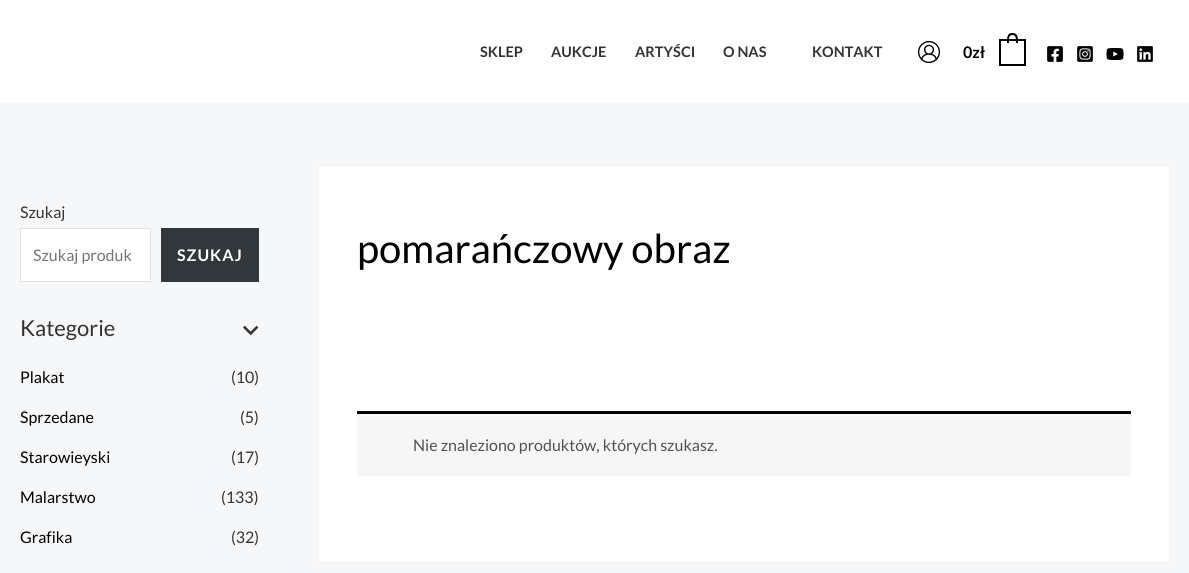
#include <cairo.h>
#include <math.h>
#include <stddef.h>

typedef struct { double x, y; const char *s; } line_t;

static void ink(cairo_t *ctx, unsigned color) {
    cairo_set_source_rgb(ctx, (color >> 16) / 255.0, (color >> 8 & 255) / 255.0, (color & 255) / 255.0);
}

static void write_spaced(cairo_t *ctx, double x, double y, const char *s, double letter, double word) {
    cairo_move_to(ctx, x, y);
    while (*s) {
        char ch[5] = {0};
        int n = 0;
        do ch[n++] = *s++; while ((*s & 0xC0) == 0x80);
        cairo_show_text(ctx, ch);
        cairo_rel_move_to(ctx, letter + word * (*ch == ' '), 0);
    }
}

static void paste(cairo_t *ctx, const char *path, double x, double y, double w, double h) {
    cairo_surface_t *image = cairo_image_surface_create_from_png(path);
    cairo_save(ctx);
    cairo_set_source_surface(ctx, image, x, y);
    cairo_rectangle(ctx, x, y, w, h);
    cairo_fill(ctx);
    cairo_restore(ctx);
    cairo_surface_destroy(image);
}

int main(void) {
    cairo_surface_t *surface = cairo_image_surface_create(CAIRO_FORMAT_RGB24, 1189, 573);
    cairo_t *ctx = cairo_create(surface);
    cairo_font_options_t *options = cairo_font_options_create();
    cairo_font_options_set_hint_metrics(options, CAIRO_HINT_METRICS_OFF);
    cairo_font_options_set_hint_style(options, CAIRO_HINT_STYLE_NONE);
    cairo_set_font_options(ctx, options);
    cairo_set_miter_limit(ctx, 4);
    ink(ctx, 0xF5F7F9);
    cairo_paint(ctx);
    ink(ctx, 0xFFFFFF);
    cairo_rectangle(ctx, 0, 0, 1189, 103);
    cairo_fill(ctx);
    cairo_select_font_face(ctx, "Lato", CAIRO_FONT_SLANT_NORMAL, CAIRO_FONT_WEIGHT_BOLD);
    cairo_set_font_size(ctx, 14.5);
    ink(ctx, 0x333333);
    {
        static const line_t items[] = {
            {480, 57, "SKLEP"},
            {551, 57, "AUKCJE"},
            {635, 57, "ARTYŚCI"},
            {723, 57, "O NAS"},
            {812, 57, "KONTAKT"},
        };
        for (size_t i = 0; i < sizeof items / sizeof *items; i++) {
            cairo_move_to(ctx, items[i].x, items[i].y);
            cairo_show_text(ctx, items[i].s);
        }
    }
    paste(ctx, "media/1.png", 917, 40, 24, 24);
    cairo_set_font_size(ctx, 16);
    ink(ctx, 0x000000);
    cairo_move_to(ctx, 963, 58);
    cairo_show_text(ctx, "0zł");
    cairo_rectangle(ctx, 1000, 40, 25, 25);
    cairo_stroke(ctx);
    cairo_set_fill_rule(ctx, CAIRO_FILL_RULE_EVEN_ODD);
    cairo_new_path(ctx);
    cairo_move_to(ctx, 1012.5, 33);
    cairo_curve_to(ctx, 1018.5, 33, 1018, 39, 1018, 43);
    cairo_line_to(ctx, 1007, 43);
    cairo_curve_to(ctx, 1007, 39, 1006.5, 33, 1012.5, 33);
    cairo_close_path(ctx);
    cairo_move_to(ctx, 1012.5, 35);
    cairo_curve_to(ctx, 1016.5, 35, 1016, 40, 1016, 43);
    cairo_line_to(ctx, 1009, 43);
    cairo_curve_to(ctx, 1009, 40, 1008, 35, 1012.5, 35);
    cairo_close_path(ctx);
    cairo_fill(ctx);
    paste(ctx, "media/2.png", 1047, 46, 16, 16);
    paste(ctx, "media/3.png", 1077, 46, 16, 16);
    paste(ctx, "media/4.png", 1106, 48, 18, 12);
    paste(ctx, "media/5.png", 1137, 46, 16, 16);
    cairo_select_font_face(ctx, "Lato", CAIRO_FONT_SLANT_NORMAL, CAIRO_FONT_WEIGHT_NORMAL);
    ink(ctx, 0x333333);
    cairo_move_to(ctx, 20, 218);
    cairo_show_text(ctx, "Szukaj");
    ink(ctx, 0xFFFFFF);
    cairo_rectangle(ctx, 20.5, 228.5, 130, 53);
    cairo_fill_preserve(ctx);
    ink(ctx, 0xE2E2E2);
    cairo_set_line_width(ctx, 1);
    cairo_stroke(ctx);
    ink(ctx, 0x757575);
    cairo_move_to(ctx, 33, 261);
    cairo_show_text(ctx, "Szukaj produk");
    ink(ctx, 0x32373C);
    cairo_rectangle(ctx, 161, 228, 98, 54);
    cairo_fill(ctx);
    cairo_select_font_face(ctx, "Lato", CAIRO_FONT_SLANT_NORMAL, CAIRO_FONT_WEIGHT_BOLD);
    ink(ctx, 0xFFFFFF);
    write_spaced(ctx, 177, 261, "SZUKAJ", 1, 0);
    cairo_select_font_face(ctx, "Lato", CAIRO_FONT_SLANT_NORMAL, CAIRO_FONT_WEIGHT_NORMAL);
    cairo_set_font_size(ctx, 22);
    ink(ctx, 0x333333);
    cairo_move_to(ctx, 20, 336);
    cairo_show_text(ctx, "Kategorie");
    paste(ctx, "media/6.png", 243, 325, 16, 11);
    cairo_set_font_size(ctx, 16);
    ink(ctx, 0x000000);
    cairo_move_to(ctx, 20, 383);
    cairo_show_text(ctx, "Plakat");
    ink(ctx, 0x333333);
    cairo_move_to(ctx, 231, 383);
    cairo_show_text(ctx, "(10)");
    ink(ctx, 0x000000);
    cairo_move_to(ctx, 20, 423);
    cairo_show_text(ctx, "Sprzedane");
    ink(ctx, 0x333333);
    cairo_move_to(ctx, 240, 423);
    cairo_show_text(ctx, "(5)");
    ink(ctx, 0x000000);
    cairo_move_to(ctx, 20, 463);
    cairo_show_text(ctx, "Starowieyski");
    ink(ctx, 0x333333);
    cairo_move_to(ctx, 231, 463);
    cairo_show_text(ctx, "(17)");
    ink(ctx, 0x000000);
    cairo_move_to(ctx, 20, 503);
    cairo_show_text(ctx, "Malarstwo");
    ink(ctx, 0x333333);
    cairo_move_to(ctx, 221, 503);
    cairo_show_text(ctx, "(133)");
    ink(ctx, 0x000000);
    cairo_move_to(ctx, 20, 543);
    cairo_show_text(ctx, "Grafika");
    ink(ctx, 0x333333);
    cairo_move_to(ctx, 231, 543);
    cairo_show_text(ctx, "(32)");
    ink(ctx, 0xFFFFFF);
    cairo_rectangle(ctx, 319, 167, 850, 394);
    cairo_fill(ctx);
    cairo_set_font_size(ctx, 40);
    ink(ctx, 0x000000);
    cairo_move_to(ctx, 357, 263);
    cairo_show_text(ctx, "pomarańczowy obraz");
    ink(ctx, 0xF7F6F7);
    cairo_rectangle(ctx, 357, 414, 774, 62);
    cairo_fill(ctx);
    ink(ctx, 0x000000);
    cairo_rectangle(ctx, 357, 411, 774, 3);
    cairo_fill(ctx);
    cairo_set_font_size(ctx, 16);
    ink(ctx, 0x515151);
    cairo_move_to(ctx, 413, 451);
    cairo_show_text(ctx, "Nie znaleziono produktów, których szukasz.");
    cairo_surface_write_to_png(surface, "image.png");
    cairo_font_options_destroy(options);
    cairo_destroy(ctx);
    cairo_surface_destroy(surface);
    return 0;
}
